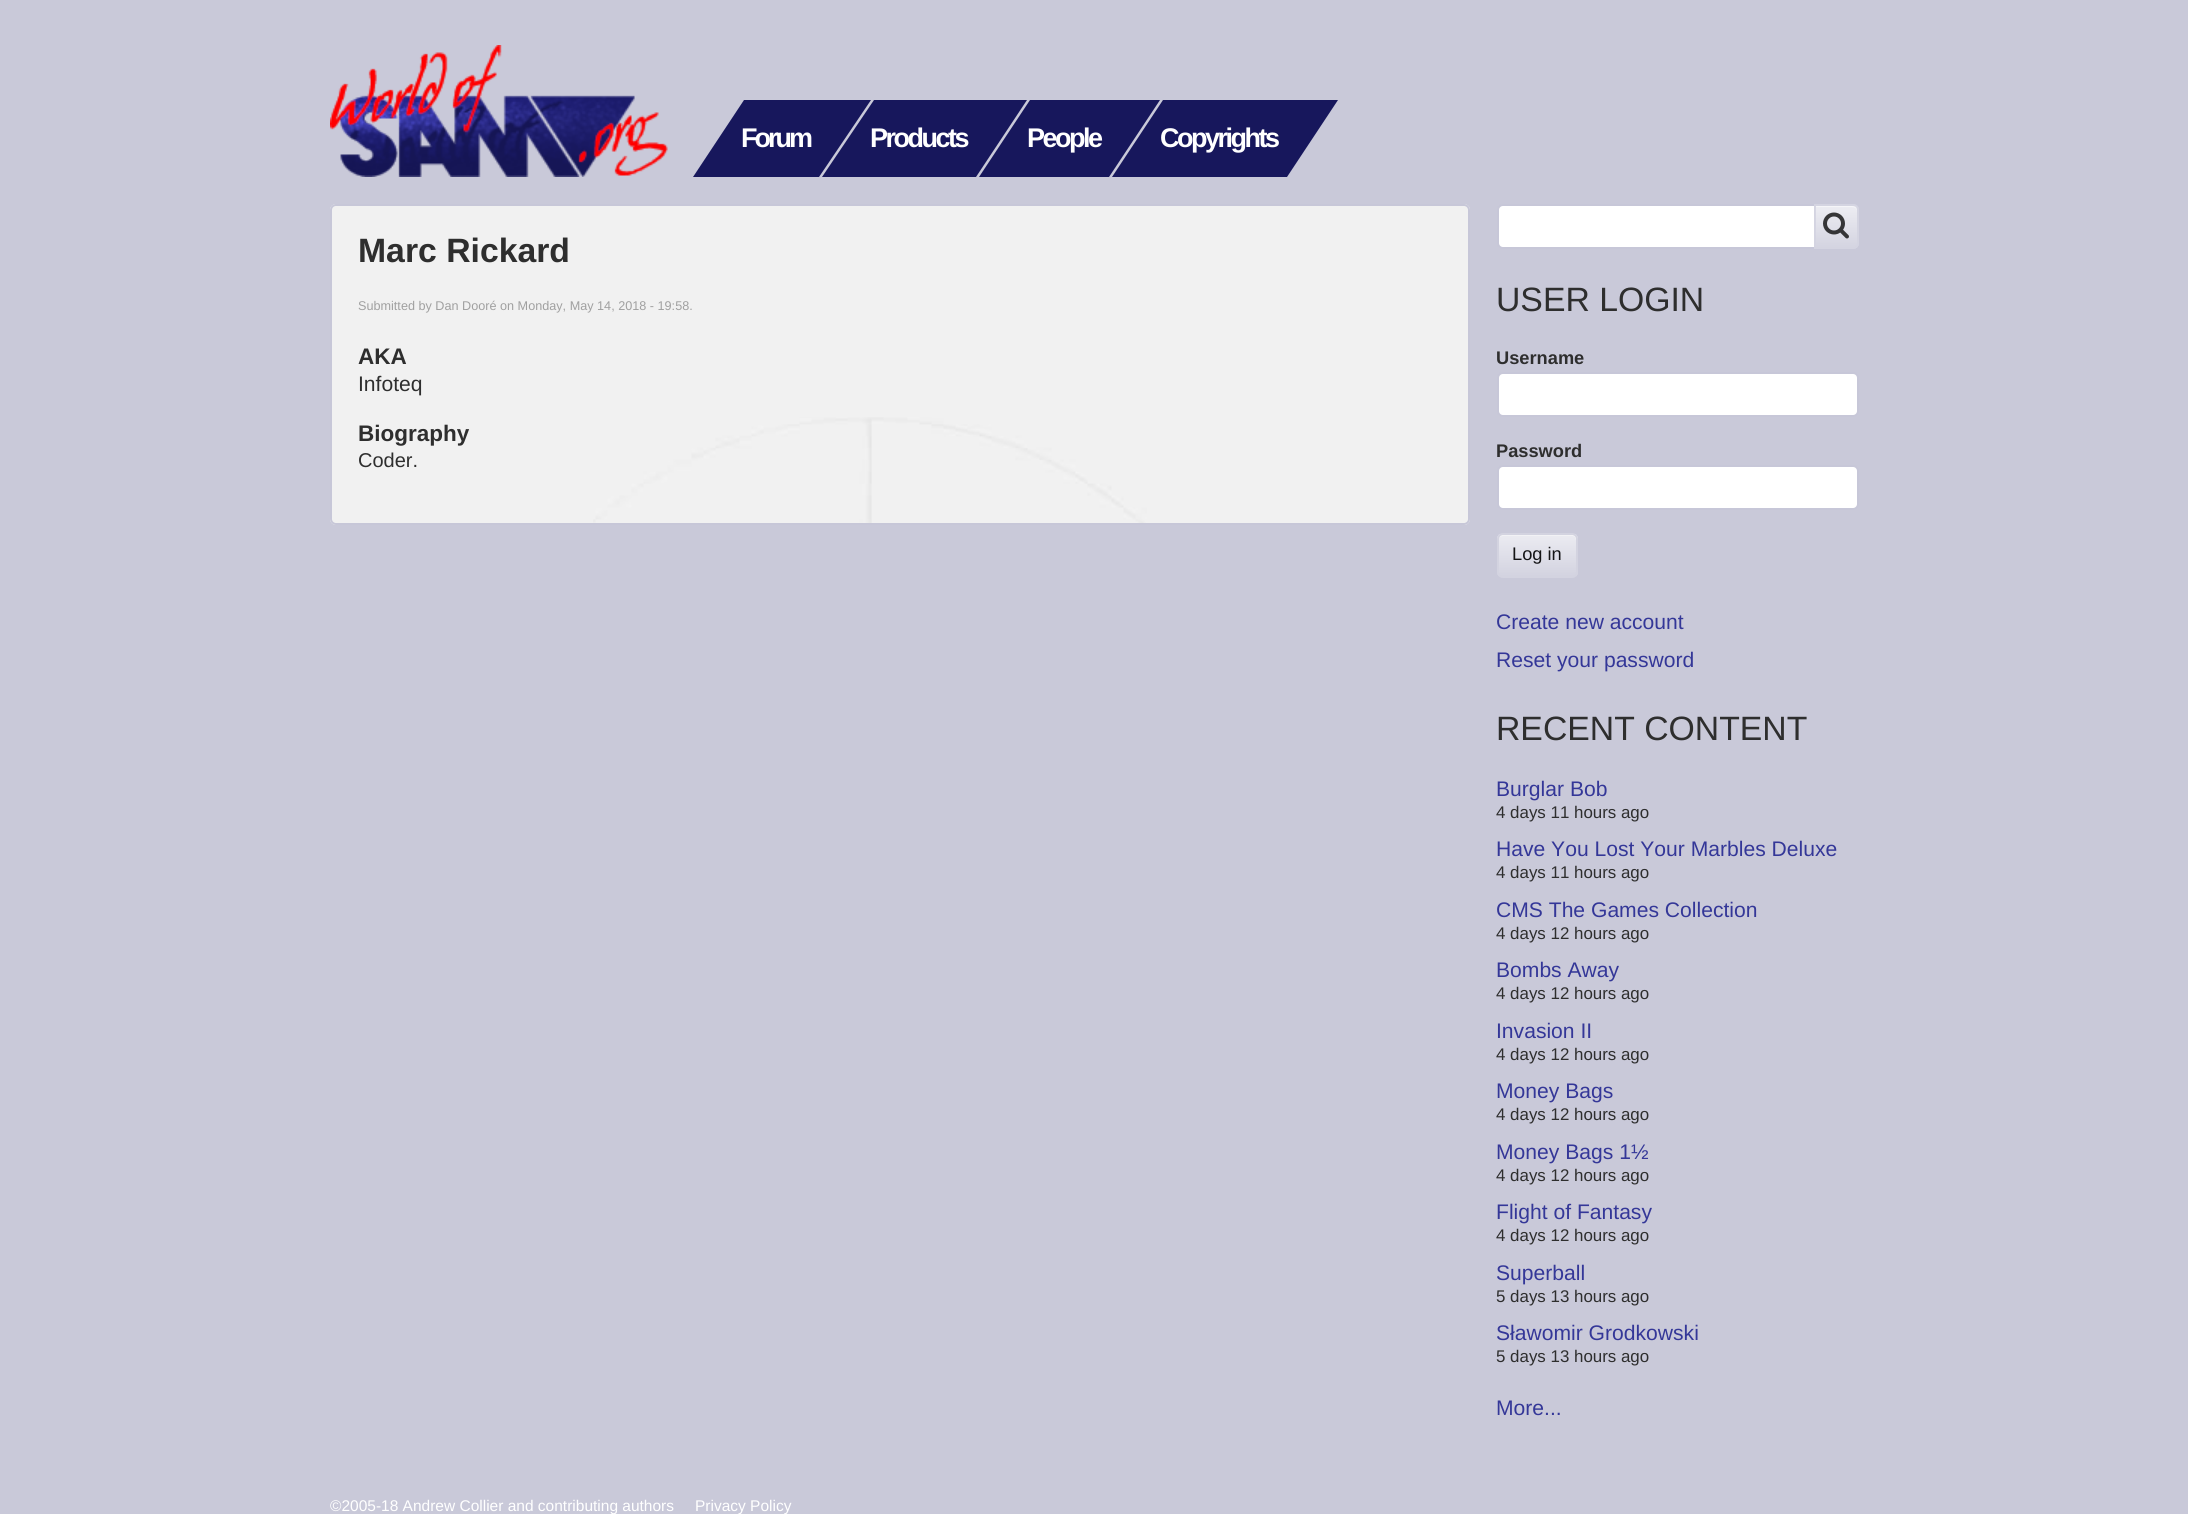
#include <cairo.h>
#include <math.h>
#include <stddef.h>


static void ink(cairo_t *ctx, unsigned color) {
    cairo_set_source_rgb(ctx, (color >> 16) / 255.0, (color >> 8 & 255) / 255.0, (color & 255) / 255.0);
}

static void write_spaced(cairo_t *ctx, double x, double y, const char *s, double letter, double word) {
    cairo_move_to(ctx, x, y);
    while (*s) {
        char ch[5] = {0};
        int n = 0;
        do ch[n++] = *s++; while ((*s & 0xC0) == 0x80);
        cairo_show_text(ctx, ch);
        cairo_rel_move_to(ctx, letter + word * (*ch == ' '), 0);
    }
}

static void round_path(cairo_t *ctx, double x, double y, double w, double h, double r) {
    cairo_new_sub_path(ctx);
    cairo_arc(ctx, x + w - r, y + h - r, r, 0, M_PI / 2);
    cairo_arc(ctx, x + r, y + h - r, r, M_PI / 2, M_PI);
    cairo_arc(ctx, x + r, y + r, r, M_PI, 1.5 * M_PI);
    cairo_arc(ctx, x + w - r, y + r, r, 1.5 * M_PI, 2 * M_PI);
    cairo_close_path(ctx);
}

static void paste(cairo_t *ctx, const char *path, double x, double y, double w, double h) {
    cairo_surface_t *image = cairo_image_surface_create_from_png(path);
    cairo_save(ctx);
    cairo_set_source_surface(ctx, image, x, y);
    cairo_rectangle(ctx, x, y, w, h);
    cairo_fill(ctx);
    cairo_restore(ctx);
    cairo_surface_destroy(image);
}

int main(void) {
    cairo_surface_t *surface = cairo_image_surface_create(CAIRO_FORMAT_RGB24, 2188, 1514);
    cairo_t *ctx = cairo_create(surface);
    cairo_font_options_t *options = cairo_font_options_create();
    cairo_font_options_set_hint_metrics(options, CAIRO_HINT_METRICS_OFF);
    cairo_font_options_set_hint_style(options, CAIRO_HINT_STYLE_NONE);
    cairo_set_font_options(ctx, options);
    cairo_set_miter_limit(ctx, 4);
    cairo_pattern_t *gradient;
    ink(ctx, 0xC9C9D9);
    cairo_paint(ctx);
    paste(ctx, "media/1.png", 330, 45, 338, 132);
    ink(ctx, 0x17175C);
    cairo_new_path(ctx);
    cairo_move_to(ctx, 744, 100);
    cairo_line_to(ctx, 871, 100);
    cairo_line_to(ctx, 819, 177);
    cairo_line_to(ctx, 693, 177);
    cairo_close_path(ctx);
    cairo_fill(ctx);
    cairo_select_font_face(ctx, "Liberation Sans", CAIRO_FONT_SLANT_NORMAL, CAIRO_FONT_WEIGHT_BOLD);
    cairo_set_font_size(ctx, 27);
    ink(ctx, 0xFFFFFF);
    write_spaced(ctx, 741, 147, "Forum", -3, 0);
    ink(ctx, 0x17175C);
    cairo_new_path(ctx);
    cairo_move_to(ctx, 874, 100);
    cairo_line_to(ctx, 1027, 100);
    cairo_line_to(ctx, 976, 177);
    cairo_line_to(ctx, 822, 177);
    cairo_close_path(ctx);
    cairo_fill(ctx);
    ink(ctx, 0xFFFFFF);
    write_spaced(ctx, 870, 147, "Products", -2.5, 0);
    ink(ctx, 0x17175C);
    cairo_new_path(ctx);
    cairo_move_to(ctx, 1030, 100);
    cairo_line_to(ctx, 1160, 100);
    cairo_line_to(ctx, 1109, 177);
    cairo_line_to(ctx, 979, 177);
    cairo_close_path(ctx);
    cairo_fill(ctx);
    ink(ctx, 0xFFFFFF);
    write_spaced(ctx, 1027, 147, "People", -2.5, 0);
    ink(ctx, 0x17175C);
    cairo_new_path(ctx);
    cairo_move_to(ctx, 1163, 100);
    cairo_line_to(ctx, 1338, 100);
    cairo_line_to(ctx, 1287, 177);
    cairo_line_to(ctx, 1112, 177);
    cairo_close_path(ctx);
    cairo_fill(ctx);
    ink(ctx, 0xFFFFFF);
    write_spaced(ctx, 1160, 147, "Copyrights", -2.5, 0);
    ink(ctx, 0xF1F1F1);
    round_path(ctx, 330, 204, 1140, 321, 6);
    cairo_fill(ctx);
    paste(ctx, "media/2.png", 593, 417, 554, 106);
    round_path(ctx, 331, 205, 1138, 319, 5);
    ink(ctx, 0xC7C7D8);
    cairo_stroke(ctx);
    cairo_set_font_size(ctx, 33.75);
    ink(ctx, 0x2E2E2E);
    cairo_move_to(ctx, 358, 262);
    cairo_show_text(ctx, "Marc Rickard");
    cairo_select_font_face(ctx, "Liberation Sans", CAIRO_FONT_SLANT_NORMAL, CAIRO_FONT_WEIGHT_NORMAL);
    cairo_set_font_size(ctx, 12.65);
    ink(ctx, 0xA0A0A0);
    cairo_move_to(ctx, 358, 310);
    cairo_show_text(ctx, "Submitted by Dan Dooré on Monday, May 14, 2018 - 19:58.");
    cairo_select_font_face(ctx, "Liberation Sans", CAIRO_FONT_SLANT_NORMAL, CAIRO_FONT_WEIGHT_BOLD);
    cairo_set_font_size(ctx, 22.5);
    ink(ctx, 0x2E2E2E);
    cairo_move_to(ctx, 358, 364);
    cairo_show_text(ctx, "AKA");
    cairo_select_font_face(ctx, "Liberation Sans", CAIRO_FONT_SLANT_NORMAL, CAIRO_FONT_WEIGHT_NORMAL);
    cairo_set_font_size(ctx, 21.1);
    cairo_move_to(ctx, 358, 391);
    cairo_show_text(ctx, "Infoteq");
    cairo_select_font_face(ctx, "Liberation Sans", CAIRO_FONT_SLANT_NORMAL, CAIRO_FONT_WEIGHT_BOLD);
    cairo_set_font_size(ctx, 22.5);
    cairo_move_to(ctx, 358, 441);
    cairo_show_text(ctx, "Biography");
    cairo_select_font_face(ctx, "Liberation Sans", CAIRO_FONT_SLANT_NORMAL, CAIRO_FONT_WEIGHT_NORMAL);
    cairo_set_font_size(ctx, 20);
    cairo_move_to(ctx, 358, 467);
    cairo_show_text(ctx, "Coder.");
    ink(ctx, 0xFFFFFF);
    round_path(ctx, 1498, 205, 360, 43, 5);
    cairo_fill_preserve(ctx);
    ink(ctx, 0xC7C7D8);
    cairo_stroke(ctx);
    cairo_set_source_rgba(ctx, 0.831, 0.831, 0.882, 0.9);
    cairo_new_path(ctx);
    cairo_move_to(ctx, 1814, 204);
    cairo_line_to(ctx, 1853, 204);
    cairo_curve_to(ctx, 1856.5, 204, 1859, 206.5, 1859, 210);
    cairo_line_to(ctx, 1859, 243);
    cairo_curve_to(ctx, 1859, 246.5, 1856.5, 249, 1853, 249);
    cairo_line_to(ctx, 1814, 249);
    cairo_close_path(ctx);
    cairo_fill(ctx);
    gradient = cairo_pattern_create_linear(1836, 206, 1836, 248);
    cairo_pattern_add_color_stop_rgba(gradient, 0, 0.941, 0.941, 0.961, 0.9);
    cairo_pattern_add_color_stop_rgba(gradient, 1, 0.831, 0.831, 0.882, 0.9);
    cairo_set_source(ctx, gradient);
    cairo_pattern_destroy(gradient);
    cairo_rectangle(ctx, 1815, 206, 42, 41);
    cairo_fill(ctx);
    paste(ctx, "media/3.png", 1823, 212, 26, 27);
    ink(ctx, 0xF5F5F8);
    cairo_new_path(ctx);
    cairo_move_to(ctx, 1815, 207);
    cairo_line_to(ctx, 1852, 207);
    cairo_curve_to(ctx, 1855, 207, 1857, 209, 1857, 212);
    cairo_line_to(ctx, 1857, 211);
    cairo_curve_to(ctx, 1857, 208, 1855, 206, 1852, 206);
    cairo_line_to(ctx, 1815, 206);
    cairo_close_path(ctx);
    cairo_fill(ctx);
    cairo_new_path(ctx);
    cairo_move_to(ctx, 1815, 205);
    cairo_line_to(ctx, 1853, 205);
    cairo_curve_to(ctx, 1856, 205, 1858, 207, 1858, 210);
    cairo_line_to(ctx, 1858, 243);
    cairo_curve_to(ctx, 1858, 246, 1856, 248, 1853, 248);
    cairo_line_to(ctx, 1815, 248);
    cairo_close_path(ctx);
    cairo_set_source_rgba(ctx, 0.831, 0.831, 0.882, 0.9);
    cairo_stroke(ctx);
    cairo_set_font_size(ctx, 33.75);
    ink(ctx, 0x2E2E2E);
    cairo_move_to(ctx, 1496, 311);
    cairo_show_text(ctx, "USER LOGIN");
    cairo_select_font_face(ctx, "Liberation Sans", CAIRO_FONT_SLANT_NORMAL, CAIRO_FONT_WEIGHT_BOLD);
    cairo_set_font_size(ctx, 18.25);
    cairo_move_to(ctx, 1496, 364);
    cairo_show_text(ctx, "Username");
    ink(ctx, 0xFFFFFF);
    round_path(ctx, 1498, 373, 360, 43, 5);
    cairo_fill_preserve(ctx);
    ink(ctx, 0xC7C7D8);
    cairo_stroke(ctx);
    ink(ctx, 0x2E2E2E);
    cairo_move_to(ctx, 1496, 457);
    cairo_show_text(ctx, "Password");
    ink(ctx, 0xFFFFFF);
    round_path(ctx, 1498, 466, 360, 43, 5);
    cairo_fill_preserve(ctx);
    ink(ctx, 0xC7C7D8);
    cairo_stroke(ctx);
    cairo_save(ctx);
    round_path(ctx, 1497, 533, 81, 45, 6);
    cairo_clip(ctx);
    gradient = cairo_pattern_create_linear(1538, 534, 1538, 576);
    cairo_pattern_add_color_stop_rgba(gradient, 0, 0.925, 0.925, 0.949, 1);
    cairo_pattern_add_color_stop_rgba(gradient, 1, 0.827, 0.827, 0.878, 1);
    cairo_set_source(ctx, gradient);
    cairo_pattern_destroy(gradient);
    cairo_rectangle(ctx, 1497, 534, 81, 42);
    cairo_fill(ctx);
    cairo_restore(ctx);
    cairo_set_source_rgba(ctx, 0.98, 0.98, 0.984, 0.5);
    cairo_new_path(ctx);
    cairo_move_to(ctx, 1503, 536);
    cairo_line_to(ctx, 1572, 536);
    cairo_curve_to(ctx, 1577, 536, 1576, 543, 1576, 546);
    cairo_line_to(ctx, 1576, 574);
    cairo_curve_to(ctx, 1577, 573, 1577, 572, 1577, 571);
    cairo_line_to(ctx, 1577, 539);
    cairo_curve_to(ctx, 1577, 536, 1575, 534, 1572, 534);
    cairo_line_to(ctx, 1504, 534);
    cairo_curve_to(ctx, 1502, 534, 1500, 536, 1499, 538);
    cairo_curve_to(ctx, 1500, 537, 1502, 536, 1503, 536);
    cairo_close_path(ctx);
    cairo_fill(ctx);
    round_path(ctx, 1498, 534, 79, 43, 5);
    ink(ctx, 0xD3D3E0);
    cairo_stroke(ctx);
    cairo_select_font_face(ctx, "Liberation Sans", CAIRO_FONT_SLANT_NORMAL, CAIRO_FONT_WEIGHT_NORMAL);
    ink(ctx, 0x141416);
    cairo_move_to(ctx, 1512, 560);
    cairo_show_text(ctx, "Log in");
    cairo_set_font_size(ctx, 21.1);
    ink(ctx, 0x343798);
    cairo_move_to(ctx, 1496, 629);
    cairo_show_text(ctx, "Create new account");
    cairo_move_to(ctx, 1496, 667);
    cairo_show_text(ctx, "Reset your password");
    cairo_set_font_size(ctx, 33.75);
    ink(ctx, 0x2E2E2E);
    cairo_move_to(ctx, 1496, 740);
    cairo_show_text(ctx, "RECENT CONTENT");
    cairo_set_font_size(ctx, 21.1);
    ink(ctx, 0x343798);
    cairo_move_to(ctx, 1496, 796);
    cairo_show_text(ctx, "Burglar Bob");
    cairo_set_font_size(ctx, 16.9);
    ink(ctx, 0x2E2E2E);
    cairo_move_to(ctx, 1496, 818);
    cairo_show_text(ctx, "4 days 11 hours ago");
    cairo_set_font_size(ctx, 21.1);
    ink(ctx, 0x343798);
    cairo_move_to(ctx, 1496, 856);
    cairo_show_text(ctx, "Have You Lost Your Marbles Deluxe");
    cairo_set_font_size(ctx, 16.9);
    ink(ctx, 0x2E2E2E);
    cairo_move_to(ctx, 1496, 878);
    cairo_show_text(ctx, "4 days 11 hours ago");
    cairo_set_font_size(ctx, 21.1);
    ink(ctx, 0x343798);
    cairo_move_to(ctx, 1496, 917);
    cairo_show_text(ctx, "CMS The Games Collection");
    cairo_set_font_size(ctx, 16.9);
    ink(ctx, 0x2E2E2E);
    cairo_move_to(ctx, 1496, 939);
    cairo_show_text(ctx, "4 days 12 hours ago");
    cairo_set_font_size(ctx, 21.1);
    ink(ctx, 0x343798);
    cairo_move_to(ctx, 1496, 977);
    cairo_show_text(ctx, "Bombs Away");
    cairo_set_font_size(ctx, 16.9);
    ink(ctx, 0x2E2E2E);
    cairo_move_to(ctx, 1496, 999);
    cairo_show_text(ctx, "4 days 12 hours ago");
    cairo_set_font_size(ctx, 21.1);
    ink(ctx, 0x343798);
    cairo_move_to(ctx, 1496, 1038);
    cairo_show_text(ctx, "Invasion II");
    cairo_set_font_size(ctx, 16.9);
    ink(ctx, 0x2E2E2E);
    cairo_move_to(ctx, 1496, 1060);
    cairo_show_text(ctx, "4 days 12 hours ago");
    cairo_set_font_size(ctx, 21.1);
    ink(ctx, 0x343798);
    cairo_move_to(ctx, 1496, 1098);
    cairo_show_text(ctx, "Money Bags");
    cairo_set_font_size(ctx, 16.9);
    ink(ctx, 0x2E2E2E);
    cairo_move_to(ctx, 1496, 1120);
    cairo_show_text(ctx, "4 days 12 hours ago");
    cairo_set_font_size(ctx, 21.1);
    ink(ctx, 0x343798);
    cairo_move_to(ctx, 1496, 1159);
    cairo_show_text(ctx, "Money Bags 1½");
    cairo_set_font_size(ctx, 16.9);
    ink(ctx, 0x2E2E2E);
    cairo_move_to(ctx, 1496, 1181);
    cairo_show_text(ctx, "4 days 12 hours ago");
    cairo_set_font_size(ctx, 21.1);
    ink(ctx, 0x343798);
    cairo_move_to(ctx, 1496, 1219);
    cairo_show_text(ctx, "Flight of Fantasy");
    cairo_set_font_size(ctx, 16.9);
    ink(ctx, 0x2E2E2E);
    cairo_move_to(ctx, 1496, 1241);
    cairo_show_text(ctx, "4 days 12 hours ago");
    cairo_set_font_size(ctx, 21.1);
    ink(ctx, 0x343798);
    cairo_move_to(ctx, 1496, 1280);
    cairo_show_text(ctx, "Superball");
    cairo_set_font_size(ctx, 16.9);
    ink(ctx, 0x2E2E2E);
    cairo_move_to(ctx, 1496, 1302);
    cairo_show_text(ctx, "5 days 13 hours ago");
    cairo_set_font_size(ctx, 21.1);
    ink(ctx, 0x343798);
    cairo_move_to(ctx, 1496, 1340);
    cairo_show_text(ctx, "Sławomir Grodkowski");
    cairo_set_font_size(ctx, 16.9);
    ink(ctx, 0x2E2E2E);
    cairo_move_to(ctx, 1496, 1362);
    cairo_show_text(ctx, "5 days 13 hours ago");
    cairo_set_font_size(ctx, 21.1);
    ink(ctx, 0x343798);
    cairo_move_to(ctx, 1496, 1415);
    cairo_show_text(ctx, "More...");
    cairo_set_font_size(ctx, 15.5);
    ink(ctx, 0xFFFFFF);
    cairo_move_to(ctx, 330, 1511);
    cairo_show_text(ctx, "©2005-18 Andrew Collier and contributing authors");
    cairo_move_to(ctx, 695, 1511);
    cairo_show_text(ctx, "Privacy Policy");
    cairo_surface_write_to_png(surface, "image.png");
    cairo_font_options_destroy(options);
    cairo_destroy(ctx);
    cairo_surface_destroy(surface);
    return 0;
}
